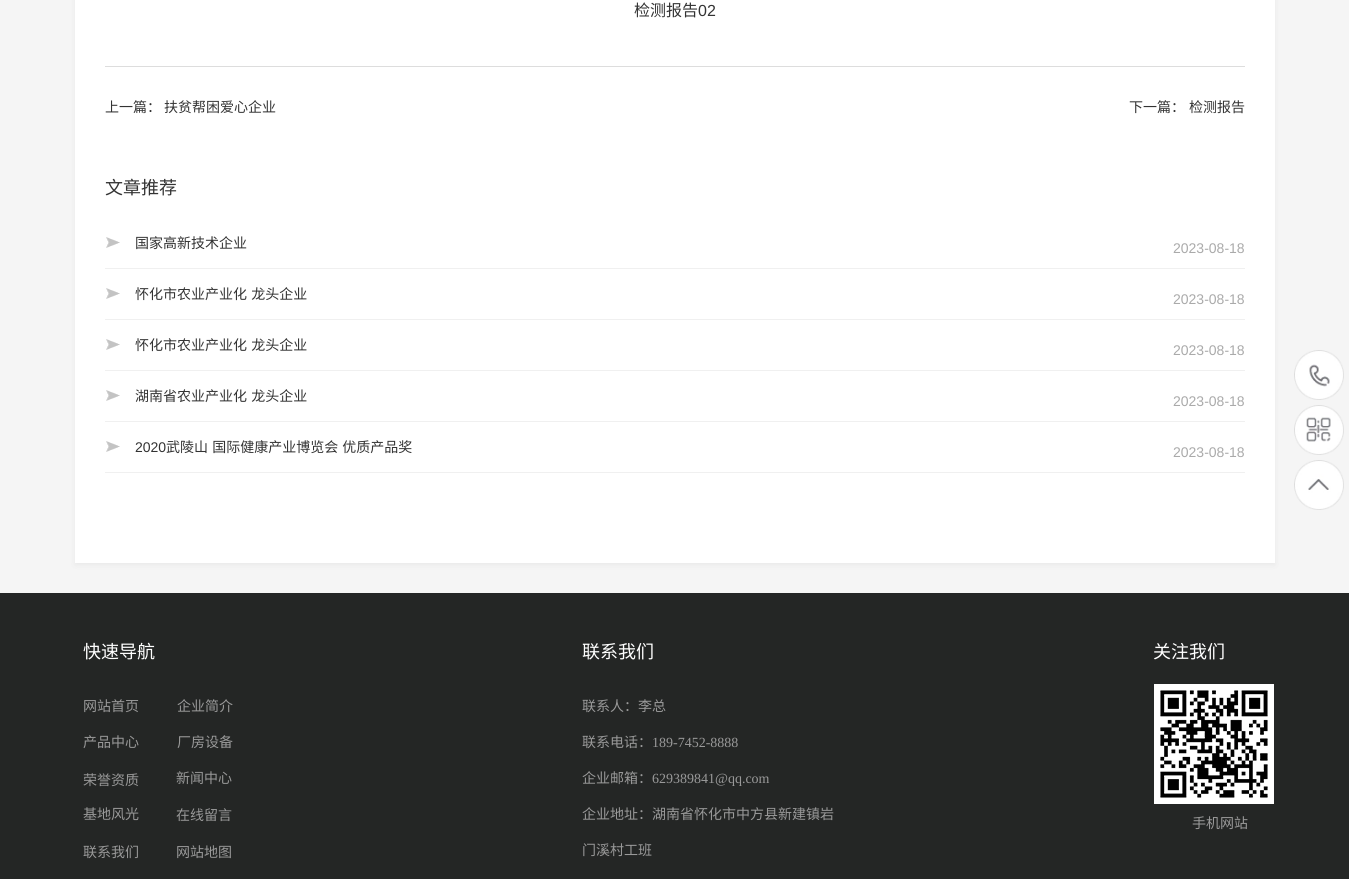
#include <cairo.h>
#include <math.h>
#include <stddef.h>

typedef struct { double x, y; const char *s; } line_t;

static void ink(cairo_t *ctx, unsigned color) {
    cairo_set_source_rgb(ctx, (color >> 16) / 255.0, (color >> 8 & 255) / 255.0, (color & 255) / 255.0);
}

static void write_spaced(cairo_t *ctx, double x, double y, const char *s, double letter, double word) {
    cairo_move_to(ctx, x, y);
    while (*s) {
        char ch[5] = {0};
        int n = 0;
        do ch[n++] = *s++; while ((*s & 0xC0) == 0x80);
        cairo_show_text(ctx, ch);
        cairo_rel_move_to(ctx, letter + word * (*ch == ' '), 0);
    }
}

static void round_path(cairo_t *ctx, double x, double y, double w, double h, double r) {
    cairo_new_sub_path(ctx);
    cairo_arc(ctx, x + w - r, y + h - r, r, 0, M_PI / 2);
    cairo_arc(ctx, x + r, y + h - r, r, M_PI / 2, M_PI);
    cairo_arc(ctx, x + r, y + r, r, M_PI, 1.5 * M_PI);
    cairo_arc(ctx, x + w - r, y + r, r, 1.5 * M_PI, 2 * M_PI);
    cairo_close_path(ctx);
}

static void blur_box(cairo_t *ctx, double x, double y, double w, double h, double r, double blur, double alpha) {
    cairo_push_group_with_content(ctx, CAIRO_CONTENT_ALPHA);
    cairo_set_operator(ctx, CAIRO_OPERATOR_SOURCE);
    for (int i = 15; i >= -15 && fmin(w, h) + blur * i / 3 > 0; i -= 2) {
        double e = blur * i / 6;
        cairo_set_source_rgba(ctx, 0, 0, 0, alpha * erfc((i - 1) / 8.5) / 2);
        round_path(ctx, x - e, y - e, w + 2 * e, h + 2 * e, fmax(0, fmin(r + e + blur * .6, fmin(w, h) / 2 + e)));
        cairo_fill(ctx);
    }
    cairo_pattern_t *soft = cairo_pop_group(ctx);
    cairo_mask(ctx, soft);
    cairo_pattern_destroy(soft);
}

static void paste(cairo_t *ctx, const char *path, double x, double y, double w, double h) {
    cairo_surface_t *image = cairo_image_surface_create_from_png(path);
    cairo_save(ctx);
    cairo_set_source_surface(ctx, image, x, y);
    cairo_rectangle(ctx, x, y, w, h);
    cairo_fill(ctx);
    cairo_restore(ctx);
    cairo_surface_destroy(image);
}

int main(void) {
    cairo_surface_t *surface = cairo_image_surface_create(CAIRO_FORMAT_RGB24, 1349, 879);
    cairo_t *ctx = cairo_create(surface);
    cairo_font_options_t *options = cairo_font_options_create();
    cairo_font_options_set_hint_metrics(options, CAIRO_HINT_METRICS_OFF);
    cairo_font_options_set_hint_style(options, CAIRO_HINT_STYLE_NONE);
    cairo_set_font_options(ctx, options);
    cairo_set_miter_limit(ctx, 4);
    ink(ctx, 0xF5F5F5);
    cairo_paint(ctx);
    ink(ctx, 0x000000);
    blur_box(ctx, 75, -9, 1200, 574, 0, 3, 0.05);
    ink(ctx, 0xFFFFFF);
    cairo_rectangle(ctx, 75, 0, 1200, 563);
    cairo_fill(ctx);
    cairo_select_font_face(ctx, "Noto Sans CJK SC", CAIRO_FONT_SLANT_NORMAL, CAIRO_FONT_WEIGHT_NORMAL);
    cairo_set_font_size(ctx, 16);
    ink(ctx, 0x333333);
    cairo_move_to(ctx, 634, 16);
    cairo_show_text(ctx, "检测报告");
    cairo_select_font_face(ctx, "Liberation Sans", CAIRO_FONT_SLANT_NORMAL, CAIRO_FONT_WEIGHT_NORMAL);
    cairo_move_to(ctx, 698, 16);
    cairo_show_text(ctx, "02");
    ink(ctx, 0xDDDDDD);
    cairo_rectangle(ctx, 105, 66, 1140, 1);
    cairo_fill(ctx);
    cairo_select_font_face(ctx, "Noto Sans CJK SC", CAIRO_FONT_SLANT_NORMAL, CAIRO_FONT_WEIGHT_NORMAL);
    cairo_set_font_size(ctx, 14);
    ink(ctx, 0x333333);
    {
        static const line_t items[] = {
            {105, 112, "上一篇："},
            {164, 112, "扶贫帮困爱心企业"},
            {1129, 112, "下一篇："},
            {1189, 112, "检测报告"},
        };
        for (size_t i = 0; i < sizeof items / sizeof *items; i++) {
            cairo_move_to(ctx, items[i].x, items[i].y);
            cairo_show_text(ctx, items[i].s);
        }
    }
    cairo_set_font_size(ctx, 18);
    cairo_move_to(ctx, 105, 194);
    cairo_show_text(ctx, "文章推荐");
    ink(ctx, 0xF0F0F0);
    cairo_rectangle(ctx, 105, 268, 1140, 1);
    cairo_fill(ctx);
    paste(ctx, "media/1.png", 106, 237, 14, 11);
    cairo_set_font_size(ctx, 14);
    ink(ctx, 0x333333);
    cairo_move_to(ctx, 135, 248);
    cairo_show_text(ctx, "国家高新技术企业");
    cairo_select_font_face(ctx, "Liberation Sans", CAIRO_FONT_SLANT_NORMAL, CAIRO_FONT_WEIGHT_NORMAL);
    ink(ctx, 0xAAAAAA);
    cairo_move_to(ctx, 1173, 253);
    cairo_show_text(ctx, "2023-08-18");
    ink(ctx, 0xF0F0F0);
    cairo_rectangle(ctx, 105, 319, 1140, 1);
    cairo_fill(ctx);
    paste(ctx, "media/1.png", 106, 288, 14, 11);
    cairo_select_font_face(ctx, "Noto Sans CJK SC", CAIRO_FONT_SLANT_NORMAL, CAIRO_FONT_WEIGHT_NORMAL);
    ink(ctx, 0x333333);
    write_spaced(ctx, 135, 299, "怀化市农业产业化 龙头企业", 0, 1);
    cairo_select_font_face(ctx, "Liberation Sans", CAIRO_FONT_SLANT_NORMAL, CAIRO_FONT_WEIGHT_NORMAL);
    ink(ctx, 0xAAAAAA);
    cairo_move_to(ctx, 1173, 304);
    cairo_show_text(ctx, "2023-08-18");
    ink(ctx, 0xF0F0F0);
    cairo_rectangle(ctx, 105, 370, 1140, 1);
    cairo_fill(ctx);
    paste(ctx, "media/1.png", 106, 339, 14, 11);
    cairo_select_font_face(ctx, "Noto Sans CJK SC", CAIRO_FONT_SLANT_NORMAL, CAIRO_FONT_WEIGHT_NORMAL);
    ink(ctx, 0x333333);
    write_spaced(ctx, 135, 350, "怀化市农业产业化 龙头企业", 0, 1);
    cairo_select_font_face(ctx, "Liberation Sans", CAIRO_FONT_SLANT_NORMAL, CAIRO_FONT_WEIGHT_NORMAL);
    ink(ctx, 0xAAAAAA);
    cairo_move_to(ctx, 1173, 355);
    cairo_show_text(ctx, "2023-08-18");
    ink(ctx, 0xF0F0F0);
    cairo_rectangle(ctx, 105, 421, 1140, 1);
    cairo_fill(ctx);
    paste(ctx, "media/1.png", 106, 390, 14, 11);
    cairo_select_font_face(ctx, "Noto Sans CJK SC", CAIRO_FONT_SLANT_NORMAL, CAIRO_FONT_WEIGHT_NORMAL);
    ink(ctx, 0x333333);
    write_spaced(ctx, 135, 401, "湖南省农业产业化 龙头企业", 0, 1);
    cairo_select_font_face(ctx, "Liberation Sans", CAIRO_FONT_SLANT_NORMAL, CAIRO_FONT_WEIGHT_NORMAL);
    ink(ctx, 0xAAAAAA);
    cairo_move_to(ctx, 1173, 406);
    cairo_show_text(ctx, "2023-08-18");
    ink(ctx, 0xF0F0F0);
    cairo_rectangle(ctx, 105, 472, 1140, 1);
    cairo_fill(ctx);
    paste(ctx, "media/1.png", 106, 441, 14, 11);
    ink(ctx, 0x333333);
    cairo_move_to(ctx, 135, 452);
    cairo_show_text(ctx, "2020");
    cairo_select_font_face(ctx, "Noto Sans CJK SC", CAIRO_FONT_SLANT_NORMAL, CAIRO_FONT_WEIGHT_NORMAL);
    write_spaced(ctx, 166, 452, "武陵山 国际健康产业博览会 优质产品奖", 0, 1);
    cairo_select_font_face(ctx, "Liberation Sans", CAIRO_FONT_SLANT_NORMAL, CAIRO_FONT_WEIGHT_NORMAL);
    ink(ctx, 0xAAAAAA);
    cairo_move_to(ctx, 1173, 457);
    cairo_show_text(ctx, "2023-08-18");
    paste(ctx, "media/2.png", 1294, 350, 50, 50);
    paste(ctx, "media/3.png", 1294, 405, 50, 50);
    paste(ctx, "media/4.png", 1294, 460, 50, 50);
    ink(ctx, 0x242625);
    cairo_rectangle(ctx, 0, 593, 1349, 286);
    cairo_fill(ctx);
    cairo_select_font_face(ctx, "Noto Sans CJK SC", CAIRO_FONT_SLANT_NORMAL, CAIRO_FONT_WEIGHT_NORMAL);
    cairo_set_font_size(ctx, 18);
    ink(ctx, 0xFFFFFF);
    {
        static const line_t items[] = {
            {83, 658, "快速导航"},
            {582, 658, "联系我们"},
            {1153, 658, "关注我们"},
        };
        for (size_t i = 0; i < sizeof items / sizeof *items; i++) {
            cairo_move_to(ctx, items[i].x, items[i].y);
            cairo_show_text(ctx, items[i].s);
        }
    }
    cairo_set_font_size(ctx, 14);
    ink(ctx, 0x999999);
    {
        static const line_t items[] = {
            {83, 711, "网站首页"},
            {177, 711, "企业简介"},
            {582, 711, "联系人：李总"},
            {582, 747, "联系电话："},
        };
        for (size_t i = 0; i < sizeof items / sizeof *items; i++) {
            cairo_move_to(ctx, items[i].x, items[i].y);
            cairo_show_text(ctx, items[i].s);
        }
    }
    cairo_select_font_face(ctx, "Liberation Serif", CAIRO_FONT_SLANT_NORMAL, CAIRO_FONT_WEIGHT_NORMAL);
    cairo_move_to(ctx, 652, 747);
    cairo_show_text(ctx, "189-7452-8888");
    cairo_select_font_face(ctx, "Noto Sans CJK SC", CAIRO_FONT_SLANT_NORMAL, CAIRO_FONT_WEIGHT_NORMAL);
    cairo_move_to(ctx, 582, 783);
    cairo_show_text(ctx, "企业邮箱：");
    cairo_select_font_face(ctx, "Liberation Serif", CAIRO_FONT_SLANT_NORMAL, CAIRO_FONT_WEIGHT_NORMAL);
    cairo_move_to(ctx, 652, 783);
    cairo_show_text(ctx, "629389841@qq.com");
    cairo_select_font_face(ctx, "Noto Sans CJK SC", CAIRO_FONT_SLANT_NORMAL, CAIRO_FONT_WEIGHT_NORMAL);
    cairo_move_to(ctx, 582, 819);
    cairo_show_text(ctx, "企业地址：湖南省怀化市中方县新建镇岩");
    cairo_move_to(ctx, 582, 855);
    cairo_show_text(ctx, "门溪村工班");
    paste(ctx, "media/5.png", 1154, 684, 120, 120);
    {
        static const line_t items[] = {
            {83, 747, "产品中心"},
            {177, 747, "厂房设备"},
            {83, 785, "荣誉资质"},
            {176, 783, "新闻中心"},
            {83, 819, "基地风光"},
            {176, 820, "在线留言"},
            {1192, 828, "手机网站"},
            {83, 857, "联系我们"},
            {176, 857, "网站地图"},
        };
        for (size_t i = 0; i < sizeof items / sizeof *items; i++) {
            cairo_move_to(ctx, items[i].x, items[i].y);
            cairo_show_text(ctx, items[i].s);
        }
    }
    cairo_surface_write_to_png(surface, "image.png");
    cairo_font_options_destroy(options);
    cairo_destroy(ctx);
    cairo_surface_destroy(surface);
    return 0;
}
